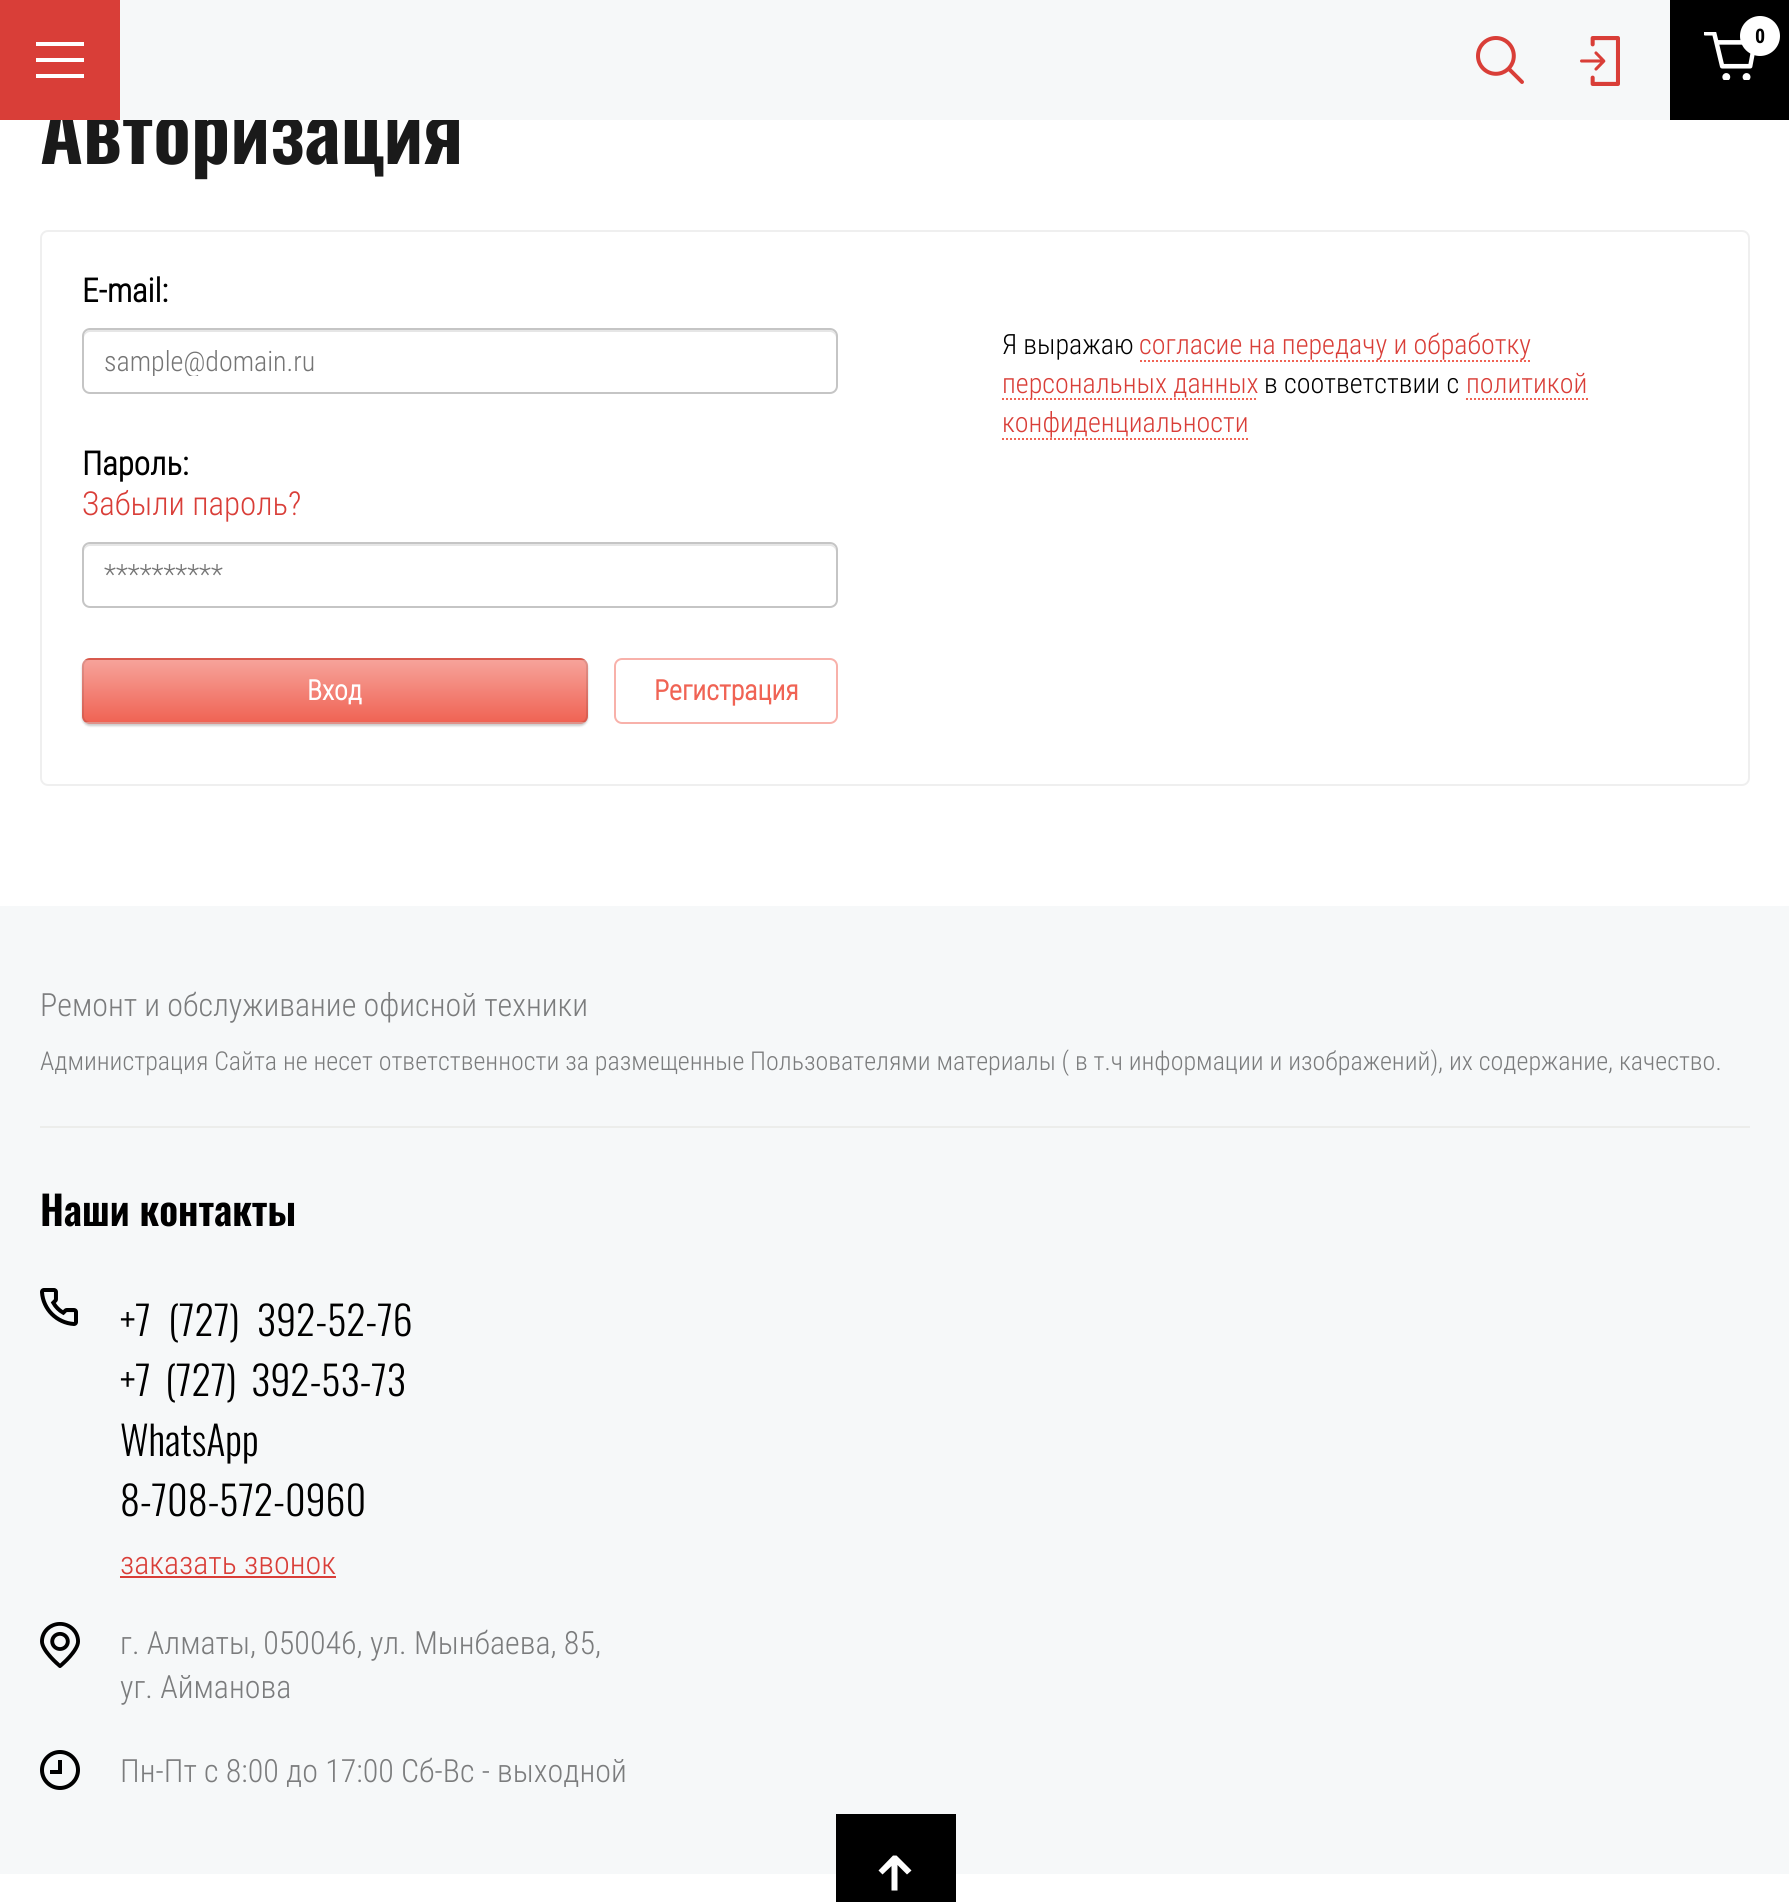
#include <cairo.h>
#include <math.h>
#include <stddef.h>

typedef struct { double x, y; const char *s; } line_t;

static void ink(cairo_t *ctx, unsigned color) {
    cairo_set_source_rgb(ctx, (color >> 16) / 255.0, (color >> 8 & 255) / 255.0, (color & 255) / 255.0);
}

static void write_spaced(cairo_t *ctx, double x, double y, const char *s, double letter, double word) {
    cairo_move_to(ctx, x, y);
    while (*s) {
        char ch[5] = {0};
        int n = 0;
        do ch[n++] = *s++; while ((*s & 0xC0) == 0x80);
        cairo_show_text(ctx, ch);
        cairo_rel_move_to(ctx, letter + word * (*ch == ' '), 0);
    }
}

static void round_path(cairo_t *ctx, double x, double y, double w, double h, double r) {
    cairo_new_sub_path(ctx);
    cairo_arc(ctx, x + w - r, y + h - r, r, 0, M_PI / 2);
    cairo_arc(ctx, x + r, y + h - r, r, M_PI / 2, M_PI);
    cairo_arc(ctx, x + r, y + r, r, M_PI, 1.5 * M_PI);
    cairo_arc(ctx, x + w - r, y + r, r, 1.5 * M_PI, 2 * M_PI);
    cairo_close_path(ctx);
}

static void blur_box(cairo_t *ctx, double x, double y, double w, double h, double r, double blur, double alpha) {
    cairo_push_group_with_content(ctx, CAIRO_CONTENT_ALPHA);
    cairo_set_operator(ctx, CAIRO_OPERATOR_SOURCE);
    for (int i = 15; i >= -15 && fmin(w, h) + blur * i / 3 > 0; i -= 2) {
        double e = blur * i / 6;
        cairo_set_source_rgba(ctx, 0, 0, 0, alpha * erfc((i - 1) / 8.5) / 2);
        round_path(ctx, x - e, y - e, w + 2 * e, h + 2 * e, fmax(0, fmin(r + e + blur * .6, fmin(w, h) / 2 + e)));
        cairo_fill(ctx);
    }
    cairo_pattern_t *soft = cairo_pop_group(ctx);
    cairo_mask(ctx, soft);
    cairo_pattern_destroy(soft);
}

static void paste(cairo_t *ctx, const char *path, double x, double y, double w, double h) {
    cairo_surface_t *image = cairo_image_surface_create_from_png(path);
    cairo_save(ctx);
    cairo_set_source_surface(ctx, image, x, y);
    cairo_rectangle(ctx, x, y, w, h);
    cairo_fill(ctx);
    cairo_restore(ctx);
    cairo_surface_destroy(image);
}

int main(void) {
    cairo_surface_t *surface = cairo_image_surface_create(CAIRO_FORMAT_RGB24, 1789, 1902);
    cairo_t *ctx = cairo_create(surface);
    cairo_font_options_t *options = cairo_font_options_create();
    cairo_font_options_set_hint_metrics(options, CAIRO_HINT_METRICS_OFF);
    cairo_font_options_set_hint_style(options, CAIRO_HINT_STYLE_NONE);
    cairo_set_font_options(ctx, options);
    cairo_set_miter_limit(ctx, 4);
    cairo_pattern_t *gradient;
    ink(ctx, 0xFFFFFF);
    cairo_paint(ctx);
    cairo_select_font_face(ctx, "Oswald SemiBold", CAIRO_FONT_SLANT_NORMAL, CAIRO_FONT_WEIGHT_NORMAL);
    cairo_set_font_size(ctx, 80);
    ink(ctx, 0x1A1A1A);
    cairo_move_to(ctx, 40, 164);
    cairo_show_text(ctx, "Авторизация");
    ink(ctx, 0xF6F8F9);
    cairo_rectangle(ctx, 120, 0, 1550, 120);
    cairo_fill(ctx);
    ink(ctx, 0xD93E38);
    cairo_rectangle(ctx, 0, 0, 120, 120);
    cairo_fill(ctx);
    ink(ctx, 0xFFFFFF);
    cairo_new_path(ctx);
    cairo_move_to(ctx, 36, 42);
    cairo_line_to(ctx, 84, 42);
    cairo_line_to(ctx, 84, 46);
    cairo_line_to(ctx, 36, 46);
    cairo_close_path(ctx);
    cairo_move_to(ctx, 36, 58);
    cairo_line_to(ctx, 84, 58);
    cairo_line_to(ctx, 84, 62);
    cairo_line_to(ctx, 36, 62);
    cairo_close_path(ctx);
    cairo_move_to(ctx, 36, 74);
    cairo_line_to(ctx, 84, 74);
    cairo_line_to(ctx, 84, 78);
    cairo_line_to(ctx, 36, 78);
    cairo_close_path(ctx);
    cairo_fill(ctx);
    paste(ctx, "media/1.png", 1476, 36, 48, 48);
    paste(ctx, "media/2.png", 1580, 36, 40, 50);
    ink(ctx, 0x000000);
    cairo_rectangle(ctx, 1670, 0, 119, 120);
    cairo_fill(ctx);
    paste(ctx, "media/3.png", 1704, 32, 51, 48);
    ink(ctx, 0xFFFFFF);
    cairo_arc(ctx, 1760, 36, 20, 0, 2 * M_PI);
    cairo_fill(ctx);
    cairo_select_font_face(ctx, "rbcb", CAIRO_FONT_SLANT_NORMAL, CAIRO_FONT_WEIGHT_BOLD);
    cairo_set_font_size(ctx, 20);
    ink(ctx, 0x000000);
    cairo_move_to(ctx, 1755, 43);
    cairo_show_text(ctx, "0");
    round_path(ctx, 41, 231, 1708, 554, 7);
    ink(ctx, 0xEFEFEF);
    cairo_stroke(ctx);
    cairo_select_font_face(ctx, "Roboto Condensed", CAIRO_FONT_SLANT_NORMAL, CAIRO_FONT_WEIGHT_BOLD);
    cairo_set_font_size(ctx, 33);
    ink(ctx, 0x000000);
    cairo_move_to(ctx, 82, 302);
    cairo_show_text(ctx, "E-mail:");
    ink(ctx, 0xE6E6E6);
    cairo_new_path(ctx);
    cairo_move_to(ctx, 90, 332);
    cairo_line_to(ctx, 830, 332);
    cairo_curve_to(ctx, 833, 332, 836, 335, 836, 338);
    cairo_line_to(ctx, 836, 336);
    cairo_curve_to(ctx, 836, 333, 833, 330, 830, 330);
    cairo_line_to(ctx, 90, 330);
    cairo_curve_to(ctx, 87, 330, 84, 333, 84, 336);
    cairo_line_to(ctx, 84, 338);
    cairo_curve_to(ctx, 84, 335, 87, 332, 90, 332);
    cairo_close_path(ctx);
    cairo_fill(ctx);
    round_path(ctx, 83, 329, 754, 64, 7);
    ink(ctx, 0xC5C5C5);
    cairo_stroke(ctx);
    cairo_save(ctx);
    cairo_rectangle(ctx, 104, 344, 712, 32);
    cairo_clip(ctx);
    cairo_select_font_face(ctx, "Roboto Condensed Light", CAIRO_FONT_SLANT_NORMAL, CAIRO_FONT_WEIGHT_NORMAL);
    cairo_set_font_size(ctx, 28);
    ink(ctx, 0x757575);
    cairo_move_to(ctx, 104, 371);
    cairo_show_text(ctx, "sample@domain.ru");
    cairo_restore(ctx);
    ink(ctx, 0x000000);
    cairo_move_to(ctx, 82, 475);
    cairo_show_text(ctx, "Пароль:");
    cairo_select_font_face(ctx, "Roboto Condensed Light", CAIRO_FONT_SLANT_NORMAL, CAIRO_FONT_WEIGHT_NORMAL);
    ink(ctx, 0xD93E38);
    cairo_move_to(ctx, 82, 515);
    cairo_show_text(ctx, "Забыли пароль?");
    ink(ctx, 0xE6E6E6);
    cairo_new_path(ctx);
    cairo_move_to(ctx, 90, 546);
    cairo_line_to(ctx, 830, 546);
    cairo_curve_to(ctx, 833, 546, 836, 549, 836, 552);
    cairo_line_to(ctx, 836, 550);
    cairo_curve_to(ctx, 836, 547, 833, 544, 830, 544);
    cairo_line_to(ctx, 90, 544);
    cairo_curve_to(ctx, 87, 544, 84, 547, 84, 550);
    cairo_line_to(ctx, 84, 552);
    cairo_curve_to(ctx, 84, 549, 87, 546, 90, 546);
    cairo_close_path(ctx);
    cairo_fill(ctx);
    round_path(ctx, 83, 543, 754, 64, 7);
    ink(ctx, 0xC5C5C5);
    cairo_stroke(ctx);
    cairo_set_font_size(ctx, 28);
    ink(ctx, 0x757575);
    cairo_move_to(ctx, 104, 584);
    cairo_show_text(ctx, "**********");
    ink(ctx, 0x000000);
    blur_box(ctx, 82, 660, 506, 66, 8, 1, 0.2);
    cairo_save(ctx);
    round_path(ctx, 82, 658, 506, 66, 8);
    cairo_clip(ctx);
    gradient = cairo_pattern_create_linear(335, 598, 335, 660);
    cairo_pattern_add_color_stop_rgba(gradient, 0, 0.965, 0.639, 0.604, 1);
    cairo_pattern_add_color_stop_rgba(gradient, 1, 0.941, 0.388, 0.329, 1);
    cairo_set_source(ctx, gradient);
    cairo_pattern_destroy(gradient);
    cairo_rectangle(ctx, 82, 658, 506, 2);
    cairo_fill(ctx);
    gradient = cairo_pattern_create_linear(335, 660, 335, 722);
    cairo_pattern_add_color_stop_rgba(gradient, 0, 0.965, 0.639, 0.604, 1);
    cairo_pattern_add_color_stop_rgba(gradient, 1, 0.941, 0.388, 0.329, 1);
    cairo_set_source(ctx, gradient);
    cairo_pattern_destroy(gradient);
    cairo_rectangle(ctx, 82, 660, 506, 62);
    cairo_fill(ctx);
    gradient = cairo_pattern_create_linear(335, 722, 335, 784);
    cairo_pattern_add_color_stop_rgba(gradient, 0, 0.965, 0.639, 0.604, 1);
    cairo_pattern_add_color_stop_rgba(gradient, 1, 0.941, 0.388, 0.329, 1);
    cairo_set_source(ctx, gradient);
    cairo_pattern_destroy(gradient);
    cairo_rectangle(ctx, 82, 722, 506, 2);
    cairo_fill(ctx);
    cairo_restore(ctx);
    round_path(ctx, 83, 659, 504, 64, 7);
    cairo_set_source_rgba(ctx, 0, 0, 0, 0.1);
    cairo_stroke(ctx);
    cairo_select_font_face(ctx, "Roboto Condensed", CAIRO_FONT_SLANT_NORMAL, CAIRO_FONT_WEIGHT_BOLD);
    ink(ctx, 0xFFFFFF);
    cairo_move_to(ctx, 307, 700);
    cairo_show_text(ctx, "Вход");
    round_path(ctx, 615, 659, 222, 64, 7);
    ink(ctx, 0xF8B1AA);
    cairo_stroke(ctx);
    ink(ctx, 0xF06354);
    cairo_move_to(ctx, 654, 700);
    cairo_show_text(ctx, "Регистрация");
    cairo_select_font_face(ctx, "Roboto Condensed Light", CAIRO_FONT_SLANT_NORMAL, CAIRO_FONT_WEIGHT_NORMAL);
    ink(ctx, 0x000000);
    cairo_move_to(ctx, 1002, 354);
    cairo_show_text(ctx, "Я выражаю");
    ink(ctx, 0xD93E38);
    cairo_move_to(ctx, 1139, 354);
    cairo_show_text(ctx, "согласие на передачу и обработку");
    cairo_new_path(ctx);
    cairo_move_to(ctx, 1140, 361);
    cairo_line_to(ctx, 1532, 361);
    ink(ctx, 0xF06354);
    cairo_set_dash(ctx, (double[]){2, 2}, 2, 0);
    cairo_stroke(ctx);
    cairo_new_path(ctx);
    cairo_move_to(ctx, 1002, 399);
    cairo_line_to(ctx, 1258, 399);
    cairo_stroke(ctx);
    ink(ctx, 0xD93E38);
    cairo_move_to(ctx, 1002, 393);
    cairo_show_text(ctx, "персональных данных");
    ink(ctx, 0x000000);
    cairo_move_to(ctx, 1264, 393);
    cairo_show_text(ctx, "в соответствии с");
    ink(ctx, 0xD93E38);
    cairo_move_to(ctx, 1466, 393);
    cairo_show_text(ctx, "политикой");
    cairo_new_path(ctx);
    cairo_move_to(ctx, 1466, 399);
    cairo_line_to(ctx, 1588, 399);
    ink(ctx, 0xF06354);
    cairo_stroke(ctx);
    ink(ctx, 0xD93E38);
    cairo_move_to(ctx, 1002, 432);
    cairo_show_text(ctx, "конфиденциальности");
    cairo_new_path(ctx);
    cairo_move_to(ctx, 1002, 439);
    cairo_line_to(ctx, 1248, 439);
    ink(ctx, 0xF06354);
    cairo_stroke(ctx);
    ink(ctx, 0xF6F8F9);
    cairo_rectangle(ctx, 0, 906, 1789, 968);
    cairo_fill(ctx);
    ink(ctx, 0xECEDEB);
    cairo_rectangle(ctx, 40, 1126, 1710, 2);
    cairo_fill(ctx);
    cairo_set_font_size(ctx, 32);
    ink(ctx, 0x7B7C7D);
    cairo_move_to(ctx, 40, 1016);
    cairo_show_text(ctx, "Ремонт и обслуживание офисной техники");
    cairo_set_font_size(ctx, 26);
    cairo_move_to(ctx, 40, 1070);
    cairo_show_text(ctx, "Администрация Сайта не несет ответственности за размещенные Пользователями материалы ( в т.ч информации и изображений), их содержание, качество.");
    cairo_select_font_face(ctx, "Oswald SemiBold", CAIRO_FONT_SLANT_NORMAL, CAIRO_FONT_WEIGHT_NORMAL);
    cairo_set_font_size(ctx, 40);
    ink(ctx, 0x000000);
    cairo_move_to(ctx, 40, 1226);
    cairo_show_text(ctx, "Наши контакты");
    paste(ctx, "media/4.png", 40, 1288, 38, 38);
    cairo_select_font_face(ctx, "Oswald Light", CAIRO_FONT_SLANT_NORMAL, CAIRO_FONT_WEIGHT_NORMAL);
    write_spaced(ctx, 120, 1336, "+7 (727) 392-52-76", 0, 9);
    write_spaced(ctx, 120, 1396, "+7 (727)", 0, 6);
    {
        static const line_t items[] = {
            {251, 1396, "392-53-73"},
            {120, 1456, "WhatsApp"},
            {120, 1516, "8-708-572-0960"},
        };
        for (size_t i = 0; i < sizeof items / sizeof *items; i++) {
            cairo_move_to(ctx, items[i].x, items[i].y);
            cairo_show_text(ctx, items[i].s);
        }
    }
    cairo_select_font_face(ctx, "Roboto Condensed Light", CAIRO_FONT_SLANT_NORMAL, CAIRO_FONT_WEIGHT_NORMAL);
    cairo_set_font_size(ctx, 32);
    ink(ctx, 0xD93E38);
    cairo_move_to(ctx, 120, 1574);
    cairo_show_text(ctx, "заказать звонок");
    cairo_rectangle(ctx, 120, 1576, 216, 2);
    cairo_fill(ctx);
    paste(ctx, "media/5.png", 40, 1622, 40, 46);
    ink(ctx, 0x7B7C7D);
    cairo_move_to(ctx, 120, 1654);
    cairo_show_text(ctx, "г. Алматы, 050046, ул. Мынбаева, 85,");
    cairo_move_to(ctx, 120, 1698);
    cairo_show_text(ctx, "уг. Айманова");
    paste(ctx, "media/6.png", 40, 1750, 40, 40);
    cairo_move_to(ctx, 120, 1782);
    cairo_show_text(ctx, "Пн-Пт с 8:00 до 17:00 Сб-Вс - выходной");
    ink(ctx, 0x000000);
    cairo_rectangle(ctx, 836, 1814, 120, 88);
    cairo_fill(ctx);
    ink(ctx, 0xFFFFFF);
    cairo_new_path(ctx);
    cairo_move_to(ctx, 896.5, 1855.5);
    cairo_line_to(ctx, 893, 1855.5);
    cairo_line_to(ctx, 878.5, 1870.5);
    cairo_line_to(ctx, 882.5, 1874.5);
    cairo_line_to(ctx, 891.5, 1866);
    cairo_line_to(ctx, 891.5, 1890.5);
    cairo_line_to(ctx, 897.5, 1890.5);
    cairo_line_to(ctx, 897.5, 1865);
    cairo_line_to(ctx, 907, 1874.5);
    cairo_line_to(ctx, 911.5, 1870.5);
    cairo_close_path(ctx);
    cairo_fill(ctx);
    cairo_surface_write_to_png(surface, "image.png");
    cairo_font_options_destroy(options);
    cairo_destroy(ctx);
    cairo_surface_destroy(surface);
    return 0;
}
